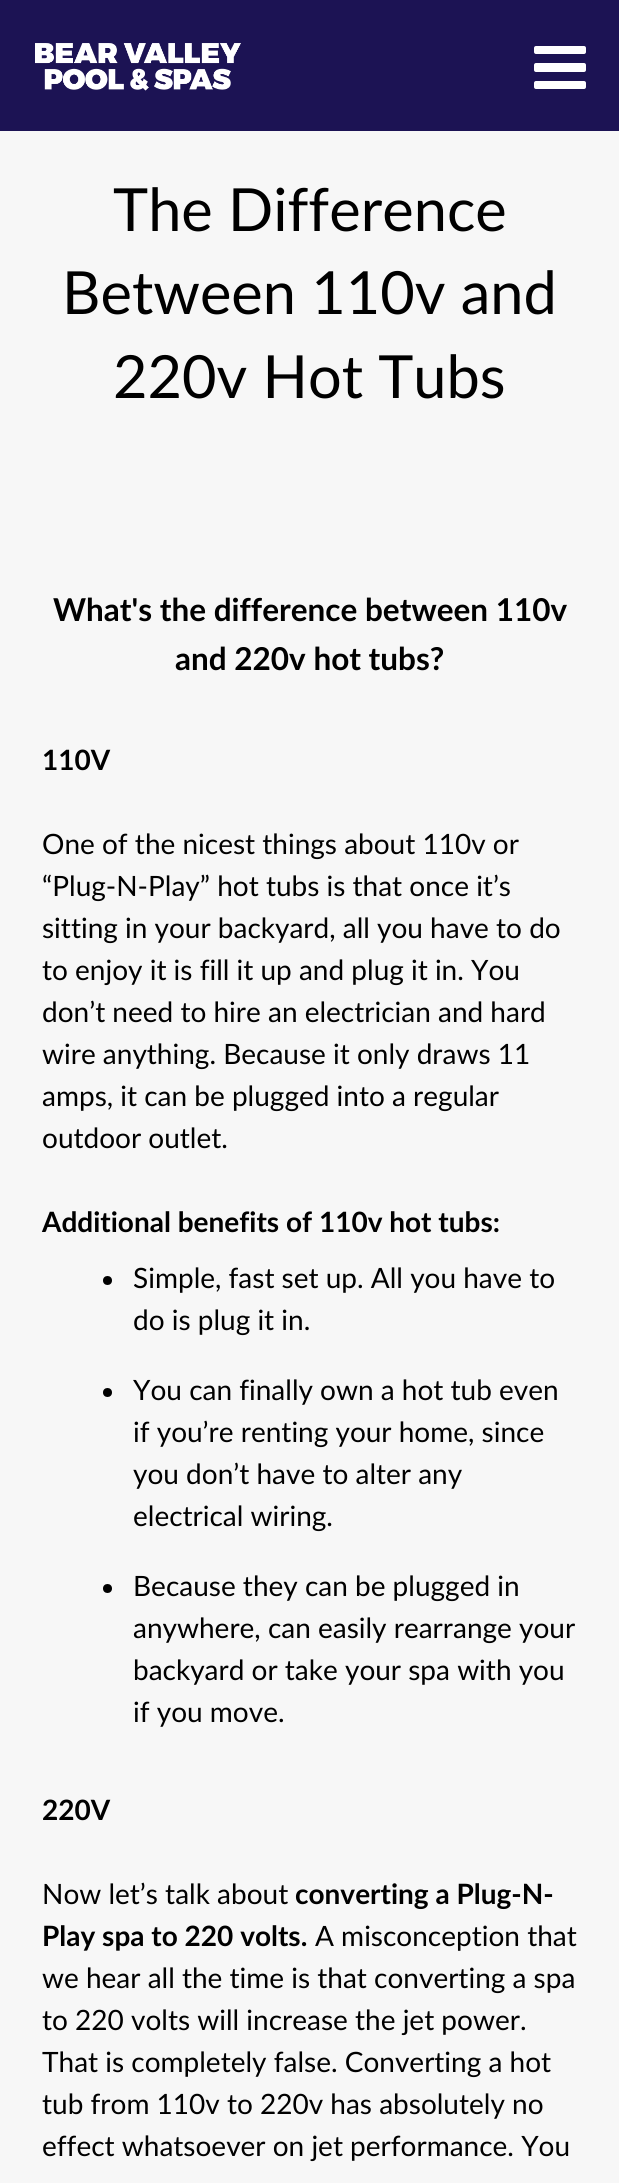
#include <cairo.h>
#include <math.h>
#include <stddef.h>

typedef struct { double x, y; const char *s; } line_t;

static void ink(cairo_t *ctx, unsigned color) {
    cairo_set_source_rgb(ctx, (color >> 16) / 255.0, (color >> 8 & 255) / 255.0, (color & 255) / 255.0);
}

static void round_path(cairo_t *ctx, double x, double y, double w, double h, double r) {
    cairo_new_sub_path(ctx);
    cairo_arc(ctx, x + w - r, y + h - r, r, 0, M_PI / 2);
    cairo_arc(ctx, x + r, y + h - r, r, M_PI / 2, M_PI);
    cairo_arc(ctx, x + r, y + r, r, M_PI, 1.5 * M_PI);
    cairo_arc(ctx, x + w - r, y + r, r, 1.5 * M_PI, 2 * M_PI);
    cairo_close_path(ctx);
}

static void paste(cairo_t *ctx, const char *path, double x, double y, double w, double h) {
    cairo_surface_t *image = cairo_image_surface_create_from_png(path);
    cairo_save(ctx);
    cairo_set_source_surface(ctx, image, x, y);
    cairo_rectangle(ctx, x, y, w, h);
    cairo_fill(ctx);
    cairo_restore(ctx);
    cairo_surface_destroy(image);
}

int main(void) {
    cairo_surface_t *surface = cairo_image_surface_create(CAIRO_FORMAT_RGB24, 619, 2183);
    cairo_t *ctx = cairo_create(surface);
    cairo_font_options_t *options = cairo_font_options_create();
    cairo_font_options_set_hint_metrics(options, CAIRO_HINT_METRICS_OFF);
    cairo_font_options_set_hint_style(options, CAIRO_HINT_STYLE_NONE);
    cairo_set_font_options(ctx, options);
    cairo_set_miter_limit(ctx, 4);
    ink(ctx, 0xF7F7F7);
    cairo_paint(ctx);
    ink(ctx, 0x1C1354);
    cairo_rectangle(ctx, 0, 0, 619, 131);
    cairo_fill(ctx);
    paste(ctx, "media/1.png", 35, 43, 206, 48);
    ink(ctx, 0xFFFFFF);
    round_path(ctx, 534, 63, 52, 9, 2);
    cairo_fill(ctx);
    round_path(ctx, 534, 46, 52, 8, 2);
    cairo_fill(ctx);
    round_path(ctx, 534, 81, 52, 8, 2);
    cairo_fill(ctx);
    cairo_select_font_face(ctx, "Lato", CAIRO_FONT_SLANT_NORMAL, CAIRO_FONT_WEIGHT_NORMAL);
    cairo_set_font_size(ctx, 59.5);
    ink(ctx, 0x000000);
    {
        static const line_t items[] = {
            {113, 231, "The Difference"},
            {62, 314, "Between 110v and"},
            {113, 398, "220v Hot Tubs"},
        };
        for (size_t i = 0; i < sizeof items / sizeof *items; i++) {
            cairo_move_to(ctx, items[i].x, items[i].y);
            cairo_show_text(ctx, items[i].s);
        }
    }
    cairo_select_font_face(ctx, "Lato", CAIRO_FONT_SLANT_NORMAL, CAIRO_FONT_WEIGHT_BOLD);
    cairo_set_font_size(ctx, 31.5);
    cairo_move_to(ctx, 53, 621);
    cairo_show_text(ctx, "What's the difference between 110v");
    cairo_move_to(ctx, 175, 670);
    cairo_show_text(ctx, "and 220v hot tubs?");
    cairo_set_font_size(ctx, 28);
    cairo_move_to(ctx, 42, 770);
    cairo_show_text(ctx, "110V");
    cairo_select_font_face(ctx, "Lato", CAIRO_FONT_SLANT_NORMAL, CAIRO_FONT_WEIGHT_NORMAL);
    {
        static const line_t items[] = {
            {42, 854, "One of the nicest things about 110v or"},
            {42, 896, "“Plug-N-Play” hot tubs is that once it’s"},
            {42, 938, "sitting in your backyard, all you have to do"},
            {42, 980, "to enjoy it is fill it up and plug it in. You"},
            {42, 1022, "don’t need to hire an electrician and hard"},
            {42, 1064, "wire anything. Because it only draws 11"},
            {42, 1106, "amps, it can be plugged into a regular"},
            {42, 1148, "outdoor outlet."},
        };
        for (size_t i = 0; i < sizeof items / sizeof *items; i++) {
            cairo_move_to(ctx, items[i].x, items[i].y);
            cairo_show_text(ctx, items[i].s);
        }
    }
    cairo_select_font_face(ctx, "Lato", CAIRO_FONT_SLANT_NORMAL, CAIRO_FONT_WEIGHT_BOLD);
    cairo_move_to(ctx, 42, 1232);
    cairo_show_text(ctx, "Additional benefits of 110v hot tubs:");
    cairo_new_path(ctx);
    cairo_arc(ctx, 107.5, 1280.5, 4.5, 0, 2 * M_PI);
    cairo_fill(ctx);
    cairo_select_font_face(ctx, "Lato", CAIRO_FONT_SLANT_NORMAL, CAIRO_FONT_WEIGHT_NORMAL);
    cairo_move_to(ctx, 133, 1288);
    cairo_show_text(ctx, "Simple, fast set up. All you have to");
    cairo_move_to(ctx, 133, 1330);
    cairo_show_text(ctx, "do is plug it in.");
    cairo_new_path(ctx);
    cairo_arc(ctx, 107.5, 1392.5, 4.5, 0, 2 * M_PI);
    cairo_fill(ctx);
    {
        static const line_t items[] = {
            {133, 1400, "You can finally own a hot tub even"},
            {133, 1442, "if you’re renting your home, since"},
            {133, 1484, "you don’t have to alter any"},
            {133, 1526, "electrical wiring."},
        };
        for (size_t i = 0; i < sizeof items / sizeof *items; i++) {
            cairo_move_to(ctx, items[i].x, items[i].y);
            cairo_show_text(ctx, items[i].s);
        }
    }
    cairo_new_path(ctx);
    cairo_arc(ctx, 107.5, 1588.5, 4.5, 0, 2 * M_PI);
    cairo_fill(ctx);
    {
        static const line_t items[] = {
            {133, 1596, "Because they can be plugged in"},
            {133, 1638, "anywhere, can easily rearrange your"},
            {133, 1680, "backyard or take your spa with you"},
            {133, 1722, "if you move."},
        };
        for (size_t i = 0; i < sizeof items / sizeof *items; i++) {
            cairo_move_to(ctx, items[i].x, items[i].y);
            cairo_show_text(ctx, items[i].s);
        }
    }
    cairo_select_font_face(ctx, "Lato", CAIRO_FONT_SLANT_NORMAL, CAIRO_FONT_WEIGHT_BOLD);
    cairo_move_to(ctx, 42, 1820);
    cairo_show_text(ctx, "220V");
    cairo_select_font_face(ctx, "Lato", CAIRO_FONT_SLANT_NORMAL, CAIRO_FONT_WEIGHT_NORMAL);
    cairo_move_to(ctx, 42, 1904);
    cairo_show_text(ctx, "Now let’s talk about");
    cairo_select_font_face(ctx, "Lato", CAIRO_FONT_SLANT_NORMAL, CAIRO_FONT_WEIGHT_BOLD);
    cairo_move_to(ctx, 295, 1904);
    cairo_show_text(ctx, "converting a Plug-N-");
    cairo_move_to(ctx, 42, 1946);
    cairo_show_text(ctx, "Play spa to 220 volts.");
    cairo_select_font_face(ctx, "Lato", CAIRO_FONT_SLANT_NORMAL, CAIRO_FONT_WEIGHT_NORMAL);
    {
        static const line_t items[] = {
            {315, 1946, "A misconception that"},
            {42, 1988, "we hear all the time is that converting a spa"},
            {42, 2030, "to 220 volts will increase the jet power."},
            {42, 2072, "That is completely false. Converting a hot"},
            {42, 2114, "tub from 110v to 220v has absolutely no"},
            {42, 2156, "effect whatsoever on jet performance. You"},
        };
        for (size_t i = 0; i < sizeof items / sizeof *items; i++) {
            cairo_move_to(ctx, items[i].x, items[i].y);
            cairo_show_text(ctx, items[i].s);
        }
    }
    cairo_surface_write_to_png(surface, "image.png");
    cairo_font_options_destroy(options);
    cairo_destroy(ctx);
    cairo_surface_destroy(surface);
    return 0;
}
